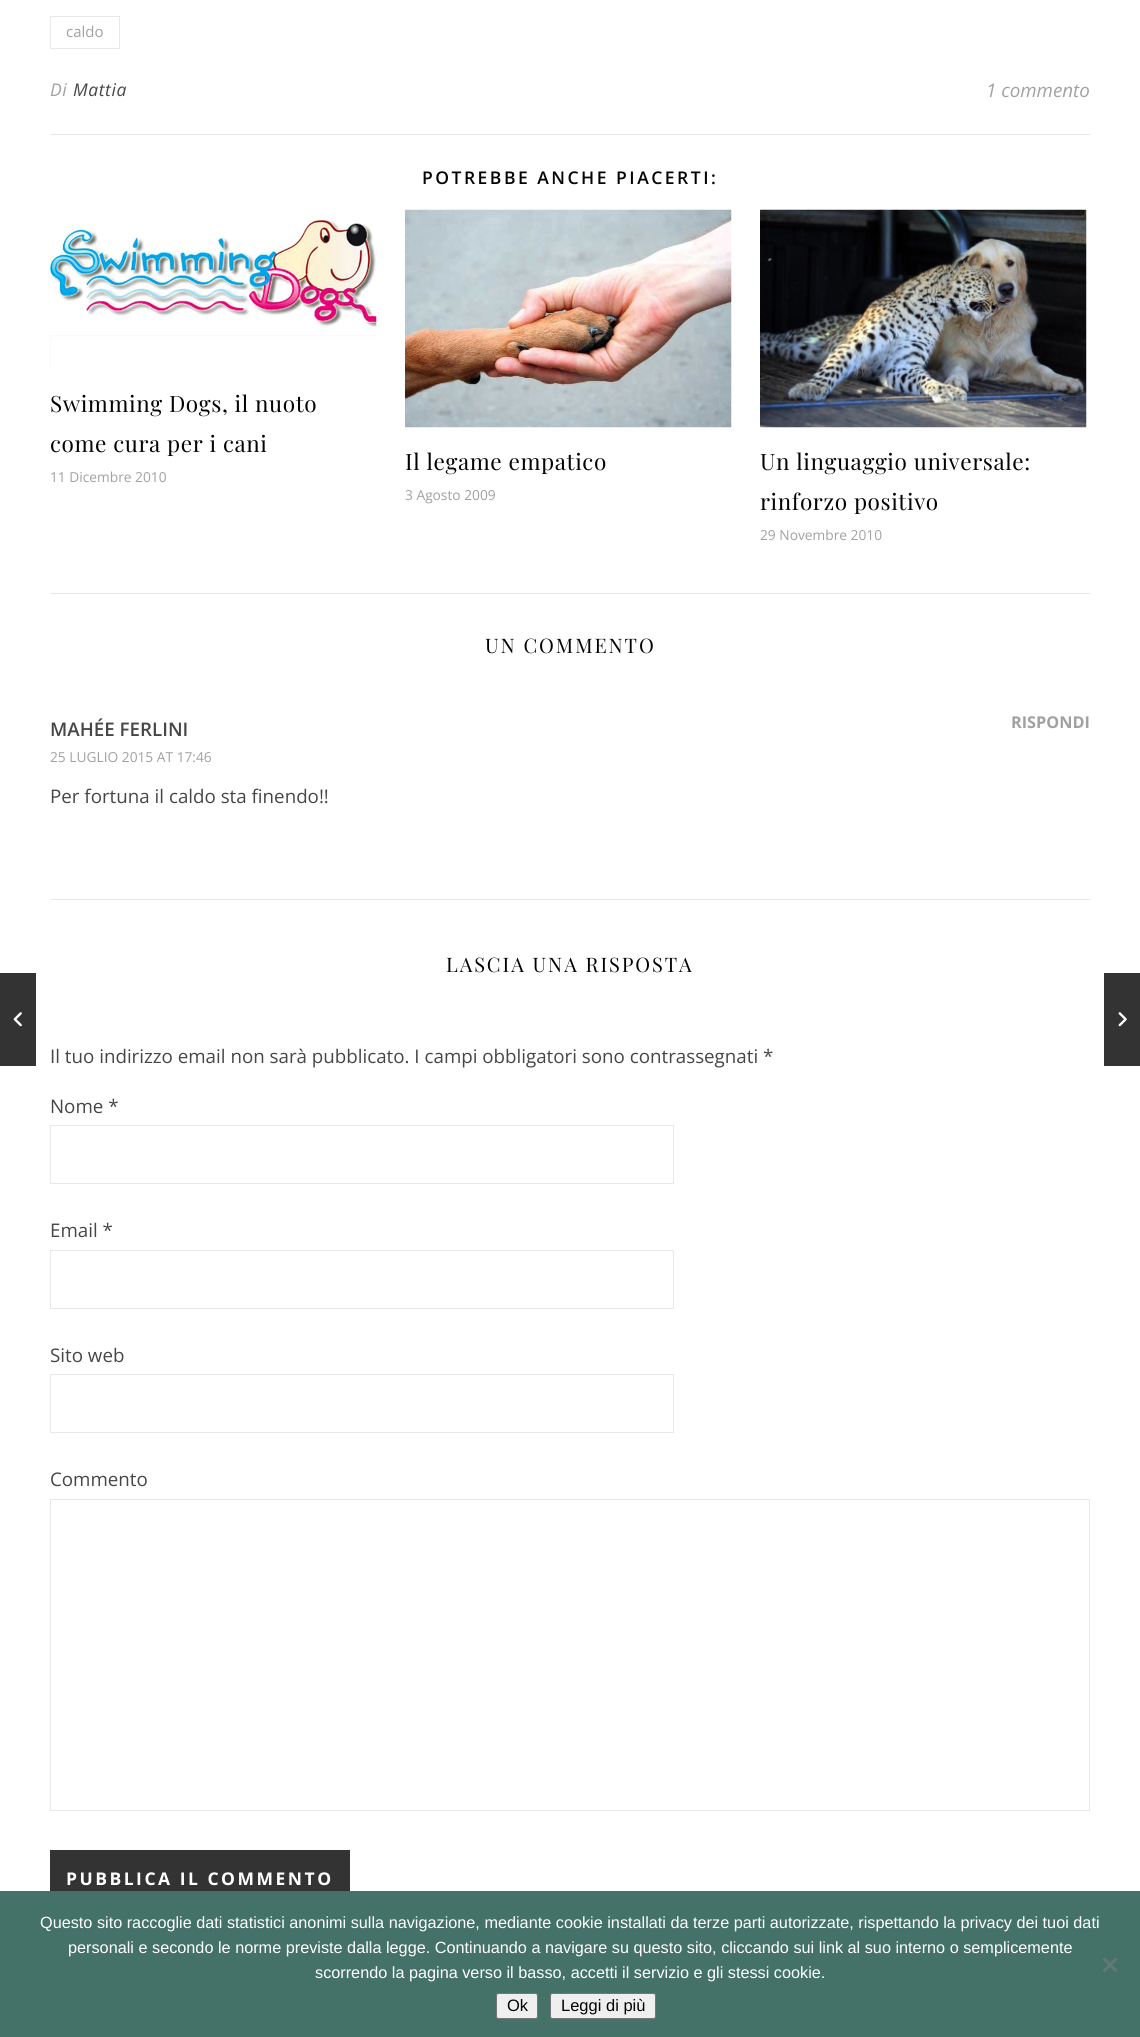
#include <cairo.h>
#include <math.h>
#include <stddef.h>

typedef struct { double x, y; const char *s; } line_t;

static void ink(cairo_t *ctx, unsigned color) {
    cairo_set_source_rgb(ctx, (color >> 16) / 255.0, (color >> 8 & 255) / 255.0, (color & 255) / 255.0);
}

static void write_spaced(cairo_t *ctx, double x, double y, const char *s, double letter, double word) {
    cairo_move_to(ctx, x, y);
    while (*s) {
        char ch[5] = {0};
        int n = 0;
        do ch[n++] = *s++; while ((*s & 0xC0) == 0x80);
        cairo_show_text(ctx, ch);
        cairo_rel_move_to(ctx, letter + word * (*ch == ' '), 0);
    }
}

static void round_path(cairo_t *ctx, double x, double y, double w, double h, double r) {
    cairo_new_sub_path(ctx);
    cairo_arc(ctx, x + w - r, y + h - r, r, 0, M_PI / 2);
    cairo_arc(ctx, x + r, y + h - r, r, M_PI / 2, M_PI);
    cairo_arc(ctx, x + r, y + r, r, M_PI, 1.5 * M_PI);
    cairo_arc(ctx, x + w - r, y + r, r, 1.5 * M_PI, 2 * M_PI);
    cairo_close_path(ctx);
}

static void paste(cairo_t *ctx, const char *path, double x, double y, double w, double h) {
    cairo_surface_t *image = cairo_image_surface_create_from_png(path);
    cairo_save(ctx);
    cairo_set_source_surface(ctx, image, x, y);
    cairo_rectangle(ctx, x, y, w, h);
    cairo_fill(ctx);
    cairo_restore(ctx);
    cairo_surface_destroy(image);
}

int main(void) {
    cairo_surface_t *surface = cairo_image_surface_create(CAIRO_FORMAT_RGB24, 1140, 2037);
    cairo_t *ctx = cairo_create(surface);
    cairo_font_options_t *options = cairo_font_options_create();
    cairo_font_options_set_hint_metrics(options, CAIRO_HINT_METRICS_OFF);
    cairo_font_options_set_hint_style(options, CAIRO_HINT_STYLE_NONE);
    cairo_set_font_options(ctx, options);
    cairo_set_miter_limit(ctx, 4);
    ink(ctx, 0xFFFFFF);
    cairo_paint(ctx);
    ink(ctx, 0xE8E8E8);
    cairo_rectangle(ctx, 50, 134, 1040, 1);
    cairo_fill(ctx);
    cairo_rectangle(ctx, 50.5, 16.5, 69, 32);
    cairo_set_line_width(ctx, 1);
    cairo_stroke(ctx);
    cairo_select_font_face(ctx, "Open Sans", CAIRO_FONT_SLANT_NORMAL, CAIRO_FONT_WEIGHT_NORMAL);
    cairo_set_font_size(ctx, 15);
    ink(ctx, 0xA1A1A1);
    cairo_move_to(ctx, 66, 37);
    cairo_show_text(ctx, "caldo");
    cairo_select_font_face(ctx, "Open Sans", CAIRO_FONT_SLANT_ITALIC, CAIRO_FONT_WEIGHT_NORMAL);
    cairo_set_font_size(ctx, 17.5);
    write_spaced(ctx, 50, 96, "Di", 0.6, 0);
    ink(ctx, 0x464646);
    write_spaced(ctx, 73, 96, "Mattia", 0.6, 0);
    cairo_set_font_size(ctx, 18.75);
    ink(ctx, 0xA1A1A1);
    cairo_move_to(ctx, 986, 97);
    cairo_show_text(ctx, "1 commento");
    ink(ctx, 0xE8E8E8);
    cairo_rectangle(ctx, 50, 593, 1040, 1);
    cairo_fill(ctx);
    cairo_select_font_face(ctx, "Open Sans SemiBold", CAIRO_FONT_SLANT_NORMAL, CAIRO_FONT_WEIGHT_NORMAL);
    cairo_set_font_size(ctx, 17.5);
    ink(ctx, 0x030303);
    write_spaced(ctx, 422, 184, "POTREBBE ANCHE PIACERTI:", 2.5, 0);
    paste(ctx, "media/1.png", 50, 219, 327, 149);
    cairo_select_font_face(ctx, "Playfair Display", CAIRO_FONT_SLANT_NORMAL, CAIRO_FONT_WEIGHT_NORMAL);
    cairo_set_font_size(ctx, 22.5);
    write_spaced(ctx, 50, 412, "Swimming Dogs, il nuoto", 0.6, 0);
    write_spaced(ctx, 50, 452, "come cura per i cani", 0.6, 0);
    cairo_select_font_face(ctx, "Open Sans", CAIRO_FONT_SLANT_NORMAL, CAIRO_FONT_WEIGHT_NORMAL);
    cairo_set_font_size(ctx, 13.75);
    ink(ctx, 0xA1A1A1);
    cairo_move_to(ctx, 50, 482);
    cairo_show_text(ctx, "11 Dicembre 2010");
    paste(ctx, "media/2.png", 405, 209, 327, 219);
    cairo_select_font_face(ctx, "Playfair Display", CAIRO_FONT_SLANT_NORMAL, CAIRO_FONT_WEIGHT_NORMAL);
    cairo_set_font_size(ctx, 22.5);
    ink(ctx, 0x030303);
    write_spaced(ctx, 405, 470, "Il legame empatico", 0.6, 0);
    cairo_select_font_face(ctx, "Open Sans", CAIRO_FONT_SLANT_NORMAL, CAIRO_FONT_WEIGHT_NORMAL);
    cairo_set_font_size(ctx, 13.75);
    ink(ctx, 0xA1A1A1);
    cairo_move_to(ctx, 405, 500);
    cairo_show_text(ctx, "3 Agosto 2009");
    paste(ctx, "media/3.png", 760, 209, 327, 219);
    cairo_select_font_face(ctx, "Playfair Display", CAIRO_FONT_SLANT_NORMAL, CAIRO_FONT_WEIGHT_NORMAL);
    cairo_set_font_size(ctx, 22.5);
    ink(ctx, 0x030303);
    write_spaced(ctx, 760, 470, "Un linguaggio universale:", 0.6, 0);
    write_spaced(ctx, 760, 510, "rinforzo positivo", 0.6, 0);
    cairo_select_font_face(ctx, "Open Sans", CAIRO_FONT_SLANT_NORMAL, CAIRO_FONT_WEIGHT_NORMAL);
    cairo_set_font_size(ctx, 13.75);
    ink(ctx, 0xA1A1A1);
    cairo_move_to(ctx, 760, 540);
    cairo_show_text(ctx, "29 Novembre 2010");
    ink(ctx, 0x333333);
    cairo_rectangle(ctx, 0, 973, 36, 93);
    cairo_fill(ctx);
    paste(ctx, "media/4.png", 13, 1012, 9, 15);
    cairo_select_font_face(ctx, "Playfair Display", CAIRO_FONT_SLANT_NORMAL, CAIRO_FONT_WEIGHT_NORMAL);
    cairo_set_font_size(ctx, 20);
    ink(ctx, 0x030303);
    write_spaced(ctx, 485, 653, "UN COMMENTO", 1.9, 0);
    ink(ctx, 0xE8E8E8);
    cairo_rectangle(ctx, 50, 899, 1040, 1);
    cairo_fill(ctx);
    cairo_select_font_face(ctx, "Open Sans", CAIRO_FONT_SLANT_NORMAL, CAIRO_FONT_WEIGHT_BOLD);
    cairo_set_font_size(ctx, 16.25);
    ink(ctx, 0xA1A1A1);
    cairo_move_to(ctx, 1011, 728);
    cairo_show_text(ctx, "RISPONDI");
    cairo_select_font_face(ctx, "Open Sans", CAIRO_FONT_SLANT_NORMAL, CAIRO_FONT_WEIGHT_NORMAL);
    cairo_set_font_size(ctx, 13.75);
    cairo_move_to(ctx, 50, 762);
    cairo_show_text(ctx, "25 LUGLIO 2015 AT 17:46");
    cairo_select_font_face(ctx, "Open Sans SemiBold", CAIRO_FONT_SLANT_NORMAL, CAIRO_FONT_WEIGHT_NORMAL);
    cairo_set_font_size(ctx, 18.75);
    ink(ctx, 0x464646);
    cairo_move_to(ctx, 50, 736);
    cairo_show_text(ctx, "MAHÉE FERLINI");
    cairo_select_font_face(ctx, "Open Sans", CAIRO_FONT_SLANT_NORMAL, CAIRO_FONT_WEIGHT_NORMAL);
    cairo_move_to(ctx, 50, 803);
    cairo_show_text(ctx, "Per fortuna il caldo sta finendo!!");
    cairo_select_font_face(ctx, "Playfair Display", CAIRO_FONT_SLANT_NORMAL, CAIRO_FONT_WEIGHT_NORMAL);
    cairo_set_font_size(ctx, 20);
    ink(ctx, 0x030303);
    write_spaced(ctx, 446, 972, "LASCIA UNA RISPOSTA", 1.9, 0);
    cairo_select_font_face(ctx, "Open Sans", CAIRO_FONT_SLANT_NORMAL, CAIRO_FONT_WEIGHT_NORMAL);
    cairo_set_font_size(ctx, 18.75);
    ink(ctx, 0x464646);
    cairo_move_to(ctx, 50, 1063);
    cairo_show_text(ctx, "Il tuo indirizzo email non sarà pubblicato. I campi obbligatori sono contrassegnati *");
    cairo_move_to(ctx, 50, 1113);
    cairo_show_text(ctx, "Nome *");
    cairo_rectangle(ctx, 50.5, 1125.5, 623, 58);
    ink(ctx, 0xE8E8E8);
    cairo_stroke(ctx);
    ink(ctx, 0x464646);
    cairo_move_to(ctx, 50, 1237);
    cairo_show_text(ctx, "Email *");
    cairo_rectangle(ctx, 50.5, 1250.5, 623, 58);
    ink(ctx, 0xE8E8E8);
    cairo_stroke(ctx);
    ink(ctx, 0x464646);
    cairo_move_to(ctx, 50, 1362);
    cairo_show_text(ctx, "Sito web");
    cairo_rectangle(ctx, 50.5, 1374.5, 623, 58);
    ink(ctx, 0xE8E8E8);
    cairo_stroke(ctx);
    ink(ctx, 0x464646);
    cairo_move_to(ctx, 50, 1486);
    cairo_show_text(ctx, "Commento");
    cairo_rectangle(ctx, 50.5, 1499.5, 1039, 311);
    ink(ctx, 0xE8E8E8);
    cairo_stroke(ctx);
    ink(ctx, 0x333333);
    cairo_rectangle(ctx, 50, 1850, 300, 41);
    cairo_fill(ctx);
    cairo_select_font_face(ctx, "Open Sans", CAIRO_FONT_SLANT_NORMAL, CAIRO_FONT_WEIGHT_BOLD);
    cairo_set_font_size(ctx, 17.5);
    ink(ctx, 0xFFFFFF);
    write_spaced(ctx, 66, 1885, "PUBBLICA IL COMMENTO", 2.5, 0);
    ink(ctx, 0x333333);
    cairo_rectangle(ctx, 1104, 973, 36, 93);
    cairo_fill(ctx);
    paste(ctx, "media/5.png", 1118, 1012, 9, 15);
    ink(ctx, 0x447268);
    cairo_rectangle(ctx, 0, 1891, 1140, 146);
    cairo_fill(ctx);
    cairo_select_font_face(ctx, "Liberation Sans", CAIRO_FONT_SLANT_NORMAL, CAIRO_FONT_WEIGHT_NORMAL);
    cairo_set_font_size(ctx, 16.25);
    ink(ctx, 0xFFFFFF);
    {
        static const line_t items[] = {
            {40, 1928, "Questo sito raccoglie dati statistici anonimi sulla navigazione, mediante cookie installati da terze parti autorizzate, rispettando la privacy dei tuoi dati"},
            {68, 1953, "personali e secondo le norme previste dalla legge. Continuando a navigare su questo sito, cliccando sui link al suo interno o semplicemente"},
            {315, 1978, "scorrendo la pagina verso il basso, accetti il servizio e gli stessi cookie."},
        };
        for (size_t i = 0; i < sizeof items / sizeof *items; i++) {
            cairo_move_to(ctx, items[i].x, items[i].y);
            cairo_show_text(ctx, items[i].s);
        }
    }
    ink(ctx, 0x627974);
    cairo_new_path(ctx);
    cairo_move_to(ctx, 1115.5, 1957.5);
    cairo_line_to(ctx, 1117.5, 1959.5);
    cairo_line_to(ctx, 1104.5, 1972.5);
    cairo_line_to(ctx, 1102.5, 1970.5);
    cairo_close_path(ctx);
    cairo_fill(ctx);
    cairo_new_path(ctx);
    cairo_move_to(ctx, 1102.5, 1959.5);
    cairo_line_to(ctx, 1104.5, 1957.5);
    cairo_line_to(ctx, 1117.5, 1970.5);
    cairo_line_to(ctx, 1115.5, 1972.5);
    cairo_close_path(ctx);
    cairo_fill(ctx);
    ink(ctx, 0xEFEFEF);
    round_path(ctx, 496.5, 1993.5, 41, 25, 2);
    cairo_fill_preserve(ctx);
    ink(ctx, 0x767676);
    cairo_stroke(ctx);
    cairo_set_font_size(ctx, 16.5);
    ink(ctx, 0x030303);
    cairo_move_to(ctx, 507, 2011);
    cairo_show_text(ctx, "Ok");
    ink(ctx, 0xEFEFEF);
    round_path(ctx, 550.5, 1993.5, 105, 25, 2);
    cairo_fill_preserve(ctx);
    ink(ctx, 0x767676);
    cairo_stroke(ctx);
    ink(ctx, 0x030303);
    cairo_move_to(ctx, 561, 2011);
    cairo_show_text(ctx, "Leggi di più");
    cairo_surface_write_to_png(surface, "image.png");
    cairo_font_options_destroy(options);
    cairo_destroy(ctx);
    cairo_surface_destroy(surface);
    return 0;
}
